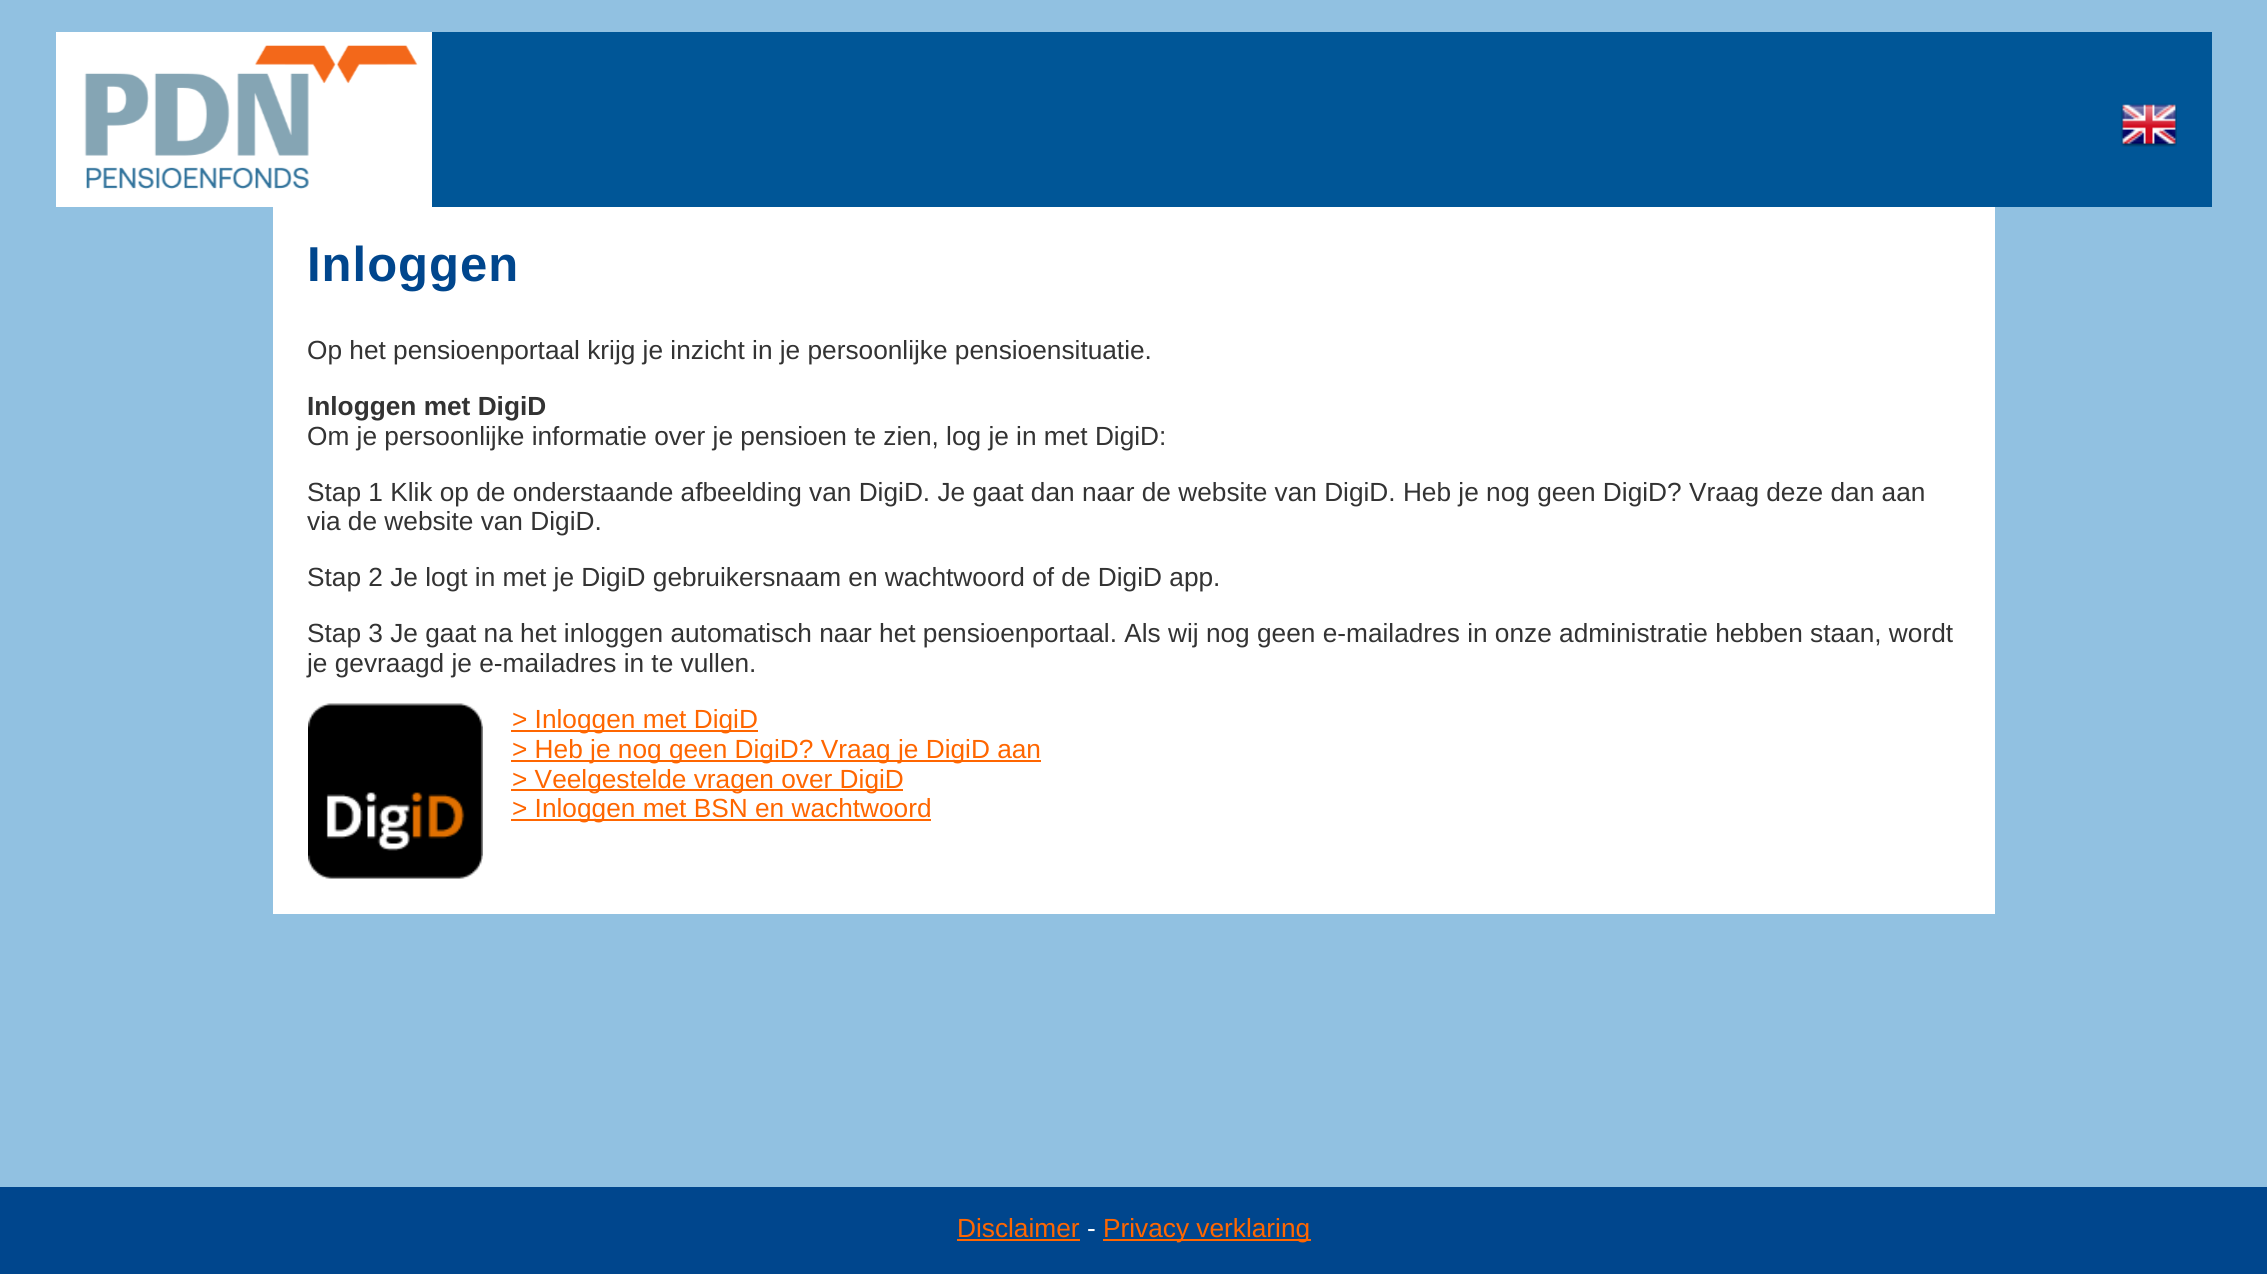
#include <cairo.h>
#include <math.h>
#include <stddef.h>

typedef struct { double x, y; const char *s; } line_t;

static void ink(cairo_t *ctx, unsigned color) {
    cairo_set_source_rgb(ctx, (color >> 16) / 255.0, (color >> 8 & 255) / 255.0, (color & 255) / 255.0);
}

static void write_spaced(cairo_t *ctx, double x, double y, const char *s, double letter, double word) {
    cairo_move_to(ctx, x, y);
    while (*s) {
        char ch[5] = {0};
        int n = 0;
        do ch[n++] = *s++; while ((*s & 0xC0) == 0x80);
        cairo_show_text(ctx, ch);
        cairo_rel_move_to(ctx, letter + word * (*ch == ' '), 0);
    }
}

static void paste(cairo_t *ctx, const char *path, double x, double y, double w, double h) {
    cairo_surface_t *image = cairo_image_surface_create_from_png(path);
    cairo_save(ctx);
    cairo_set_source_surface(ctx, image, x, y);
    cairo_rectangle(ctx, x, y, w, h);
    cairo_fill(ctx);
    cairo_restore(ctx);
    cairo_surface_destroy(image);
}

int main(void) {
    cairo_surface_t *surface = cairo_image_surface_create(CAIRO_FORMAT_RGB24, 2267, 1274);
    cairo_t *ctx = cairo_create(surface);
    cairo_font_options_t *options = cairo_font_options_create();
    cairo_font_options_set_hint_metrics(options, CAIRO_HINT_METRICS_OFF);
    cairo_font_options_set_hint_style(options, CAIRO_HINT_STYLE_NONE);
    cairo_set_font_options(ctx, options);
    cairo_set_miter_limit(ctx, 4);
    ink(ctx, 0x91C1E1);
    cairo_paint(ctx);
    ink(ctx, 0x005697);
    cairo_rectangle(ctx, 432, 32, 1780, 175);
    cairo_fill(ctx);
    ink(ctx, 0xFFFFFF);
    cairo_rectangle(ctx, 56, 32, 376, 175);
    cairo_fill(ctx);
    paste(ctx, "media/1.png", 84, 45, 334, 144);
    paste(ctx, "media/2.png", 2120, 103, 57, 44);
    cairo_rectangle(ctx, 273, 207, 1722, 707);
    cairo_fill(ctx);
    cairo_select_font_face(ctx, "Liberation Sans", CAIRO_FONT_SLANT_NORMAL, CAIRO_FONT_WEIGHT_BOLD);
    cairo_set_font_size(ctx, 49);
    ink(ctx, 0x00468D);
    write_spaced(ctx, 307, 281, "Inloggen", 1, 0);
    cairo_select_font_face(ctx, "Liberation Sans", CAIRO_FONT_SLANT_NORMAL, CAIRO_FONT_WEIGHT_NORMAL);
    cairo_set_font_size(ctx, 26.25);
    ink(ctx, 0x333333);
    cairo_move_to(ctx, 307, 359);
    cairo_show_text(ctx, "Op het pensioenportaal krijg je inzicht in je persoonlijke pensioensituatie.");
    cairo_select_font_face(ctx, "Liberation Sans", CAIRO_FONT_SLANT_NORMAL, CAIRO_FONT_WEIGHT_BOLD);
    cairo_move_to(ctx, 307, 415);
    cairo_show_text(ctx, "Inloggen met DigiD");
    cairo_select_font_face(ctx, "Liberation Sans", CAIRO_FONT_SLANT_NORMAL, CAIRO_FONT_WEIGHT_NORMAL);
    {
        static const line_t items[] = {
            {307, 445, "Om je persoonlijke informatie over je pensioen te zien, log je in met DigiD:"},
            {307, 501, "Stap 1 Klik op de onderstaande afbeelding van DigiD. Je gaat dan naar de website van DigiD. Heb je nog geen DigiD? Vraag deze dan aan"},
            {307, 530, "via de website van DigiD."},
            {307, 586, "Stap 2 Je logt in met je DigiD gebruikersnaam en wachtwoord of de DigiD app."},
            {307, 642, "Stap 3 Je gaat na het inloggen automatisch naar het pensioenportaal. Als wij nog geen e-mailadres in onze administratie hebben staan, wordt"},
            {307, 672, "je gevraagd je e-mailadres in te vullen."},
        };
        for (size_t i = 0; i < sizeof items / sizeof *items; i++) {
            cairo_move_to(ctx, items[i].x, items[i].y);
            cairo_show_text(ctx, items[i].s);
        }
    }
    paste(ctx, "media/3.png", 308, 703, 175, 176);
    ink(ctx, 0xFF6600);
    cairo_rectangle(ctx, 511, 730, 247, 2);
    cairo_fill(ctx);
    cairo_move_to(ctx, 512, 728);
    cairo_show_text(ctx, "> Inloggen met DigiD");
    cairo_rectangle(ctx, 511, 760, 530, 2);
    cairo_fill(ctx);
    cairo_move_to(ctx, 512, 758);
    cairo_show_text(ctx, "> Heb je nog geen DigiD? Vraag je DigiD aan");
    cairo_rectangle(ctx, 511, 789, 392, 2);
    cairo_fill(ctx);
    cairo_move_to(ctx, 512, 788);
    cairo_show_text(ctx, "> Veelgestelde vragen over DigiD");
    cairo_rectangle(ctx, 511, 819, 420, 2);
    cairo_fill(ctx);
    cairo_move_to(ctx, 512, 817);
    cairo_show_text(ctx, "> Inloggen met BSN en wachtwoord");
    ink(ctx, 0x00468D);
    cairo_rectangle(ctx, 0, 1187, 2267, 87);
    cairo_fill(ctx);
    ink(ctx, 0xFF6600);
    cairo_move_to(ctx, 957, 1237);
    cairo_show_text(ctx, "Disclaimer");
    cairo_rectangle(ctx, 957, 1239, 123, 2);
    cairo_fill(ctx);
    ink(ctx, 0xFFFFFF);
    cairo_move_to(ctx, 1087, 1237);
    cairo_show_text(ctx, "-");
    ink(ctx, 0xFF6600);
    cairo_rectangle(ctx, 1103, 1239, 208, 2);
    cairo_fill(ctx);
    cairo_move_to(ctx, 1103, 1237);
    cairo_show_text(ctx, "Privacy verklaring");
    cairo_surface_write_to_png(surface, "image.png");
    cairo_font_options_destroy(options);
    cairo_destroy(ctx);
    cairo_surface_destroy(surface);
    return 0;
}
